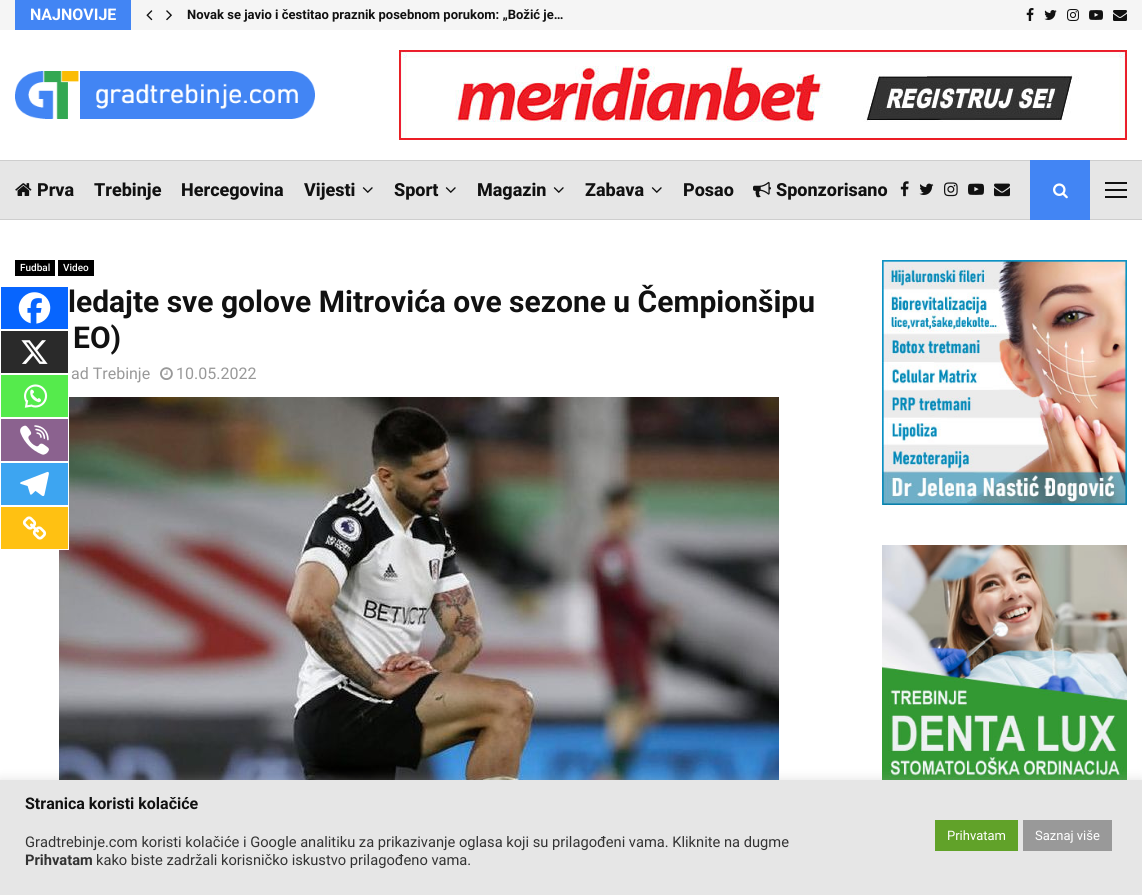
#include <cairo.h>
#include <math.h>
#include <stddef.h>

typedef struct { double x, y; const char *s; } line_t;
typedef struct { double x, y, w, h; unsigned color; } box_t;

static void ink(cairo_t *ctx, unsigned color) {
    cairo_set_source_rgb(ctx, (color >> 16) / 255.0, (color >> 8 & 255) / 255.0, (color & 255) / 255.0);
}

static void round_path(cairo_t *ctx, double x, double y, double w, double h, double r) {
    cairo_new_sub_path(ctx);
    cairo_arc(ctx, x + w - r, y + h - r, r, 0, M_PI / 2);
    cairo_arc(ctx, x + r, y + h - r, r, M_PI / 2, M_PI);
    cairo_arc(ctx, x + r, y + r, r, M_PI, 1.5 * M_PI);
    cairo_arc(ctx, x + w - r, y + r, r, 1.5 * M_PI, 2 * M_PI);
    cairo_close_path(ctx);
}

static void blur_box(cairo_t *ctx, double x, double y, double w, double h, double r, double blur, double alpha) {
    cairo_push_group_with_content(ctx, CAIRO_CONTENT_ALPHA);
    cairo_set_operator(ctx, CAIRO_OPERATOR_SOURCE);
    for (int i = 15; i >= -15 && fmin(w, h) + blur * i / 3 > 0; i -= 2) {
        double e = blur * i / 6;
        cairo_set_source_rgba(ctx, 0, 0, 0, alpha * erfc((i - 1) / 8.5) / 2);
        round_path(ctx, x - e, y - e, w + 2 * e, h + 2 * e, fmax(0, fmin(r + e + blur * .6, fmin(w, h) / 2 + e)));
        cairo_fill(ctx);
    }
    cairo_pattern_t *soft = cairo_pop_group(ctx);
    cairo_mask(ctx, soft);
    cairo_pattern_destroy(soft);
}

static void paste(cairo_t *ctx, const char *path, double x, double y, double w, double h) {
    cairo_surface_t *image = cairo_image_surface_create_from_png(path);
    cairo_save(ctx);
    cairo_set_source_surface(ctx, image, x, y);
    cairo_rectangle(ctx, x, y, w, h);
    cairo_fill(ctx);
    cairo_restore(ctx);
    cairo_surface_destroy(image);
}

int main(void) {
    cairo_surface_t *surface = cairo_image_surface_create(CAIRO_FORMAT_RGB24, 1142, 895);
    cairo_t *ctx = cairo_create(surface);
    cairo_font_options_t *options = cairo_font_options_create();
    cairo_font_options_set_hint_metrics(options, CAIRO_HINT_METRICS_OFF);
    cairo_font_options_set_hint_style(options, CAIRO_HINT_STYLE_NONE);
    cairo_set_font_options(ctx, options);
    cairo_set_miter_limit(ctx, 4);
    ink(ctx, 0xFFFFFF);
    cairo_paint(ctx);
    ink(ctx, 0xF5F5F5);
    cairo_rectangle(ctx, 0, 0, 1142, 30);
    cairo_fill(ctx);
    ink(ctx, 0x4285F4);
    cairo_rectangle(ctx, 15, 0, 116, 30);
    cairo_fill(ctx);
    cairo_select_font_face(ctx, "Roboto", CAIRO_FONT_SLANT_NORMAL, CAIRO_FONT_WEIGHT_BOLD);
    cairo_set_font_size(ctx, 16);
    ink(ctx, 0xFFFFFF);
    cairo_move_to(ctx, 30, 20);
    cairo_show_text(ctx, "NAJNOVIJE");
    paste(ctx, "media/1.png", 146, 10, 7, 11);
    paste(ctx, "media/2.png", 166, 10, 6, 11);
    cairo_set_font_size(ctx, 13);
    ink(ctx, 0x111111);
    cairo_move_to(ctx, 187, 19);
    cairo_show_text(ctx, "Novak se javio i čestitao praznik posebnom porukom: „Božić je…");
    paste(ctx, "media/3.png", 1026, 8, 8, 13);
    paste(ctx, "media/4.png", 1044, 10, 13, 10);
    paste(ctx, "media/5.png", 1067, 9, 12, 12);
    paste(ctx, "media/6.png", 1089, 10, 14, 10);
    paste(ctx, "media/7.png", 1113, 10, 14, 11);
    paste(ctx, "media/8.png", 15, 71, 300, 48);
    paste(ctx, "media/9.png", 399, 50, 728, 90);
    {
        static const box_t items[] = {
            {0, 161, 1142, 58, 0xE6E6E6},
            {0, 219, 1142, 1, 0xCECECE},
            {0, 160, 1142, 1, 0xCECECE},
        };
        for (size_t i = 0; i < sizeof items / sizeof *items; i++) {
            ink(ctx, items[i].color);
            cairo_rectangle(ctx, items[i].x, items[i].y, items[i].w, items[i].h);
            cairo_fill(ctx);
        }
    }
    paste(ctx, "media/10.png", 15, 183, 17, 13);
    cairo_select_font_face(ctx, "Roboto ExtraBold", CAIRO_FONT_SLANT_NORMAL, CAIRO_FONT_WEIGHT_NORMAL);
    cairo_set_font_size(ctx, 18);
    ink(ctx, 0x111111);
    {
        static const line_t items[] = {
            {37, 196, "Prva"},
            {94, 196, "Trebinje"},
            {181, 196, "Hercegovina"},
            {304, 196, "Vijesti"},
        };
        for (size_t i = 0; i < sizeof items / sizeof *items; i++) {
            cairo_move_to(ctx, items[i].x, items[i].y);
            cairo_show_text(ctx, items[i].s);
        }
    }
    paste(ctx, "media/11.png", 362, 187, 11, 6);
    cairo_move_to(ctx, 394, 196);
    cairo_show_text(ctx, "Sport");
    paste(ctx, "media/11.png", 445, 187, 11, 6);
    cairo_move_to(ctx, 477, 196);
    cairo_show_text(ctx, "Magazin");
    paste(ctx, "media/11.png", 553, 187, 11, 6);
    cairo_move_to(ctx, 585, 196);
    cairo_show_text(ctx, "Zabava");
    paste(ctx, "media/11.png", 651, 187, 11, 6);
    cairo_move_to(ctx, 683, 196);
    cairo_show_text(ctx, "Posao");
    paste(ctx, "media/12.png", 753, 181, 18, 17);
    cairo_move_to(ctx, 776, 196);
    cairo_show_text(ctx, "Sponzorisano");
    paste(ctx, "media/13.png", 900, 181, 9, 16);
    paste(ctx, "media/14.png", 919, 183, 15, 12);
    paste(ctx, "media/15.png", 944, 182, 14, 15);
    paste(ctx, "media/16.png", 968, 183, 16, 12);
    paste(ctx, "media/17.png", 994, 183, 16, 14);
    ink(ctx, 0x4285F4);
    cairo_rectangle(ctx, 1030, 160, 60, 60);
    cairo_fill(ctx);
    paste(ctx, "media/18.png", 1053, 183, 15, 16);
    {
        static const box_t items[] = {
            {1105, 182, 22, 2, 0x111111},
            {1105, 196, 22, 2, 0x111111},
            {1105, 189, 22, 2, 0x111111},
            {15, 260, 40, 16, 0x000000},
        };
        for (size_t i = 0; i < sizeof items / sizeof *items; i++) {
            ink(ctx, items[i].color);
            cairo_rectangle(ctx, items[i].x, items[i].y, items[i].w, items[i].h);
            cairo_fill(ctx);
        }
    }
    cairo_select_font_face(ctx, "Roboto Medium", CAIRO_FONT_SLANT_NORMAL, CAIRO_FONT_WEIGHT_NORMAL);
    cairo_set_font_size(ctx, 10);
    ink(ctx, 0xFFFFFF);
    cairo_move_to(ctx, 20, 271);
    cairo_show_text(ctx, "Fudbal");
    ink(ctx, 0x000000);
    cairo_rectangle(ctx, 58, 260, 36, 16);
    cairo_fill(ctx);
    ink(ctx, 0xFFFFFF);
    cairo_move_to(ctx, 63, 271);
    cairo_show_text(ctx, "Video");
    cairo_select_font_face(ctx, "Roboto", CAIRO_FONT_SLANT_NORMAL, CAIRO_FONT_WEIGHT_BOLD);
    cairo_set_font_size(ctx, 30);
    ink(ctx, 0x111111);
    cairo_move_to(ctx, 68, 312);
    cairo_show_text(ctx, "ledajte sve golove Mitrovića ove sezone u Čempionšipu");
    cairo_move_to(ctx, 73, 348);
    cairo_show_text(ctx, "EO)");
    cairo_select_font_face(ctx, "Roboto", CAIRO_FONT_SLANT_NORMAL, CAIRO_FONT_WEIGHT_NORMAL);
    cairo_set_font_size(ctx, 16);
    ink(ctx, 0x999999);
    cairo_move_to(ctx, 71, 379);
    cairo_show_text(ctx, "ad Trebinje");
    paste(ctx, "media/19.png", 160, 367, 13, 13);
    cairo_move_to(ctx, 176, 379);
    cairo_show_text(ctx, "10.05.2022");
    ink(ctx, 0x0765FE);
    cairo_rectangle(ctx, 1, 287, 67, 42);
    cairo_fill(ctx);
    paste(ctx, "media/20.png", 18, 292, 33, 32);
    ink(ctx, 0x2A2A2A);
    cairo_rectangle(ctx, 1, 331, 67, 42);
    cairo_fill(ctx);
    paste(ctx, "media/21.png", 21, 340, 27, 24);
    paste(ctx, "media/26.png", 59, 397, 720, 383);
    ink(ctx, 0x55EB4C);
    cairo_rectangle(ctx, 0.5, 374.5, 68, 43);
    cairo_fill_preserve(ctx);
    ink(ctx, 0xFFFFFF);
    cairo_set_line_width(ctx, 1);
    cairo_stroke(ctx);
    paste(ctx, "media/22.png", 24, 384, 24, 24);
    ink(ctx, 0x8B628F);
    cairo_rectangle(ctx, 0.5, 418.5, 68, 43);
    cairo_fill_preserve(ctx);
    ink(ctx, 0xFFFFFF);
    cairo_stroke(ctx);
    paste(ctx, "media/23.png", 20, 425, 29, 30);
    ink(ctx, 0x3DA5F1);
    cairo_rectangle(ctx, 0.5, 462.5, 68, 43);
    cairo_fill_preserve(ctx);
    ink(ctx, 0xFFFFFF);
    cairo_stroke(ctx);
    paste(ctx, "media/24.png", 20, 471, 29, 26);
    ink(ctx, 0xFFC112);
    cairo_rectangle(ctx, 0.5, 506.5, 68, 43);
    cairo_fill_preserve(ctx);
    ink(ctx, 0xFFFFFF);
    cairo_stroke(ctx);
    paste(ctx, "media/25.png", 22, 516, 25, 24);
    paste(ctx, "media/27.png", 882, 260, 245, 245);
    paste(ctx, "media/28.png", 882, 545, 245, 235);
    ink(ctx, 0xACABAB);
    blur_box(ctx, 0, 779, 1142, 115, 0, 5, 0.3);
    ink(ctx, 0xE6E6E6);
    cairo_rectangle(ctx, 0, 780, 1142, 115);
    cairo_fill(ctx);
    cairo_select_font_face(ctx, "Roboto", CAIRO_FONT_SLANT_NORMAL, CAIRO_FONT_WEIGHT_BOLD);
    ink(ctx, 0x111111);
    cairo_move_to(ctx, 25, 809);
    cairo_show_text(ctx, "Stranica koristi kolačiće");
    cairo_select_font_face(ctx, "Roboto", CAIRO_FONT_SLANT_NORMAL, CAIRO_FONT_WEIGHT_NORMAL);
    cairo_set_font_size(ctx, 14.67);
    ink(ctx, 0x333333);
    cairo_move_to(ctx, 25, 847);
    cairo_show_text(ctx, "Gradtrebinje.com koristi kolačiće i Google analitiku za prikazivanje oglasa koji su prilagođeni vama. Kliknite na dugme");
    cairo_select_font_face(ctx, "Roboto", CAIRO_FONT_SLANT_NORMAL, CAIRO_FONT_WEIGHT_BOLD);
    cairo_move_to(ctx, 25, 865);
    cairo_show_text(ctx, "Prihvatam");
    cairo_select_font_face(ctx, "Roboto", CAIRO_FONT_SLANT_NORMAL, CAIRO_FONT_WEIGHT_NORMAL);
    cairo_move_to(ctx, 96, 865);
    cairo_show_text(ctx, "kako biste zadržali korisničko iskustvo prilagođeno vama.");
    ink(ctx, 0x61A229);
    cairo_rectangle(ctx, 935, 820, 83, 31);
    cairo_fill(ctx);
    cairo_set_font_size(ctx, 13);
    ink(ctx, 0xFFFFFF);
    cairo_move_to(ctx, 947, 840);
    cairo_show_text(ctx, "Prihvatam");
    ink(ctx, 0x999999);
    cairo_rectangle(ctx, 1023, 820, 89, 31);
    cairo_fill(ctx);
    ink(ctx, 0xFFFFFF);
    cairo_move_to(ctx, 1035, 840);
    cairo_show_text(ctx, "Saznaj više");
    cairo_surface_write_to_png(surface, "image.png");
    cairo_font_options_destroy(options);
    cairo_destroy(ctx);
    cairo_surface_destroy(surface);
    return 0;
}
